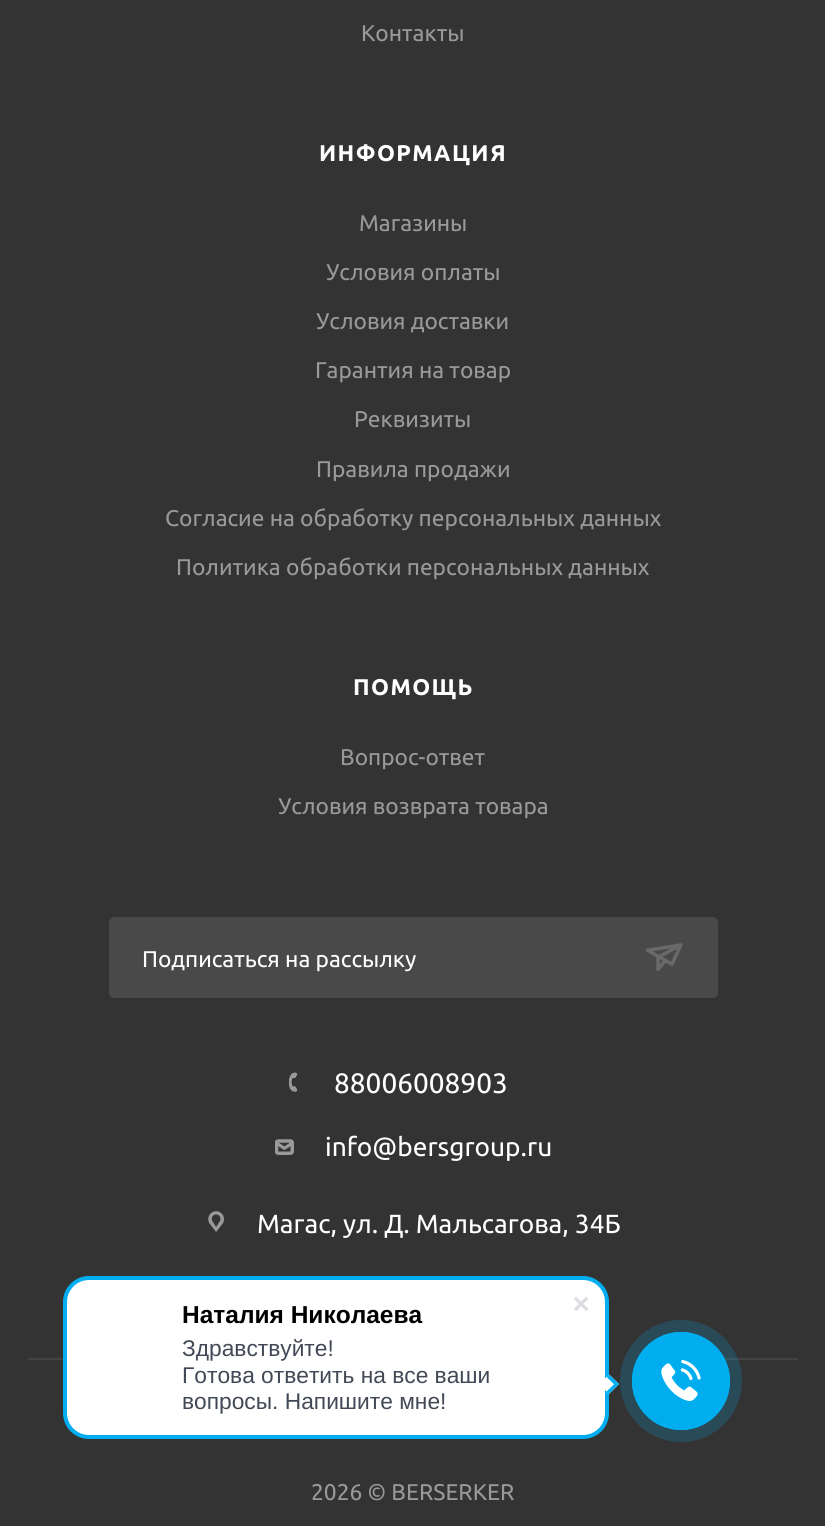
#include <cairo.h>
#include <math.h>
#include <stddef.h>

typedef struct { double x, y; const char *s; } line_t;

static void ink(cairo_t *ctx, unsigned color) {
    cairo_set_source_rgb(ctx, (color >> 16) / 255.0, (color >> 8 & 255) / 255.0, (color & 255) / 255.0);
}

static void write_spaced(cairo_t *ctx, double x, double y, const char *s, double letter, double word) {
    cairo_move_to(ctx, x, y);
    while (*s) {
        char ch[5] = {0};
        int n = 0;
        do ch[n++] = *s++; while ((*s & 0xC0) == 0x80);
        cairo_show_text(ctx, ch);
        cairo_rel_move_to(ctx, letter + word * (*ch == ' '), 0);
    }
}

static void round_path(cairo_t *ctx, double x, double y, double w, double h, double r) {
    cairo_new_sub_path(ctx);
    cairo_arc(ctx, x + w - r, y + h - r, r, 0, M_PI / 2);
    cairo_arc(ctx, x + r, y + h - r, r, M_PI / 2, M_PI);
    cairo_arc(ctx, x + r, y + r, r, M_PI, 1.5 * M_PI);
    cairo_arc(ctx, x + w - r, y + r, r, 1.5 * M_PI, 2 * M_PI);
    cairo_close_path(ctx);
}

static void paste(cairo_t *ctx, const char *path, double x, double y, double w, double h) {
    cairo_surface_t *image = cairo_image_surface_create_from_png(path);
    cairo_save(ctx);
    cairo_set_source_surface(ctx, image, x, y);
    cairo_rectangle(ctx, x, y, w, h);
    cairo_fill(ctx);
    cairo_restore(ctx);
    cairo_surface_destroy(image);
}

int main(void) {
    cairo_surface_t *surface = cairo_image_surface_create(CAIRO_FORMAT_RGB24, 825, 1526);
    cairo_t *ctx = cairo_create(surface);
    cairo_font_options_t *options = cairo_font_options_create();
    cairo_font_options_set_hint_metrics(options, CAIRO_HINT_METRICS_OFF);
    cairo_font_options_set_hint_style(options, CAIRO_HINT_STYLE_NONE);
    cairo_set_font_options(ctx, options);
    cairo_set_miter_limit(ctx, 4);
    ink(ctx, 0x333333);
    cairo_paint(ctx);
    cairo_select_font_face(ctx, "Ubuntu", CAIRO_FONT_SLANT_NORMAL, CAIRO_FONT_WEIGHT_NORMAL);
    cairo_set_font_size(ctx, 22.75);
    ink(ctx, 0x999999);
    cairo_move_to(ctx, 361, 41);
    cairo_show_text(ctx, "Контакты");
    cairo_select_font_face(ctx, "Ubuntu", CAIRO_FONT_SLANT_NORMAL, CAIRO_FONT_WEIGHT_BOLD);
    ink(ctx, 0xFFFFFF);
    write_spaced(ctx, 319, 161, "ИНФОРМАЦИЯ", 1.4, 0);
    cairo_select_font_face(ctx, "Ubuntu", CAIRO_FONT_SLANT_NORMAL, CAIRO_FONT_WEIGHT_NORMAL);
    ink(ctx, 0x999999);
    {
        static const line_t items[] = {
            {359, 231, "Магазины"},
            {326, 280, "Условия оплаты"},
            {316, 329, "Условия доставки"},
            {315, 378, "Гарантия на товар"},
            {354, 427, "Реквизиты"},
            {316, 477, "Правила продажи"},
            {165, 526, "Согласие на обработку персональных данных"},
            {176, 575, "Политика обработки персональных данных"},
        };
        for (size_t i = 0; i < sizeof items / sizeof *items; i++) {
            cairo_move_to(ctx, items[i].x, items[i].y);
            cairo_show_text(ctx, items[i].s);
        }
    }
    cairo_select_font_face(ctx, "Ubuntu", CAIRO_FONT_SLANT_NORMAL, CAIRO_FONT_WEIGHT_BOLD);
    ink(ctx, 0xFFFFFF);
    write_spaced(ctx, 353, 695, "ПОМОЩЬ", 1.4, 0);
    cairo_select_font_face(ctx, "Ubuntu", CAIRO_FONT_SLANT_NORMAL, CAIRO_FONT_WEIGHT_NORMAL);
    ink(ctx, 0x999999);
    cairo_move_to(ctx, 340, 765);
    cairo_show_text(ctx, "Вопрос-ответ");
    cairo_move_to(ctx, 278, 814);
    cairo_show_text(ctx, "Условия возврата товара");
    ink(ctx, 0x494949);
    round_path(ctx, 110, 918, 607, 79, 4);
    cairo_fill_preserve(ctx);
    cairo_stroke(ctx);
    ink(ctx, 0xFFFFFF);
    cairo_move_to(ctx, 142, 967);
    cairo_show_text(ctx, "Подписаться на рассылку");
    paste(ctx, "media/1.png", 646, 943, 37, 28);
    paste(ctx, "media/2.png", 289, 1072, 9, 20);
    cairo_set_font_size(ctx, 28);
    cairo_move_to(ctx, 334, 1093);
    cairo_show_text(ctx, "88006008903");
    paste(ctx, "media/3.png", 275, 1139, 19, 16);
    cairo_set_font_size(ctx, 26.25);
    cairo_move_to(ctx, 325, 1156);
    cairo_show_text(ctx, "info@bersgroup.ru");
    paste(ctx, "media/4.png", 208, 1211, 16, 21);
    cairo_move_to(ctx, 257, 1233);
    cairo_show_text(ctx, "Магас, ул. Д. Мальсагова, 34Б");
    ink(ctx, 0x434343);
    cairo_rectangle(ctx, 28, 1358, 770, 2);
    cairo_fill(ctx);
    ink(ctx, 0x333333);
    cairo_rectangle(ctx, 609, 1358, 39, 2);
    cairo_fill(ctx);
    cairo_set_font_size(ctx, 22.75);
    ink(ctx, 0x999999);
    cairo_move_to(ctx, 311, 1500);
    cairo_show_text(ctx, "2026 © BERSERKER");
    ink(ctx, 0xFFFFFF);
    round_path(ctx, 65, 1278, 542, 159, 24);
    cairo_fill_preserve(ctx);
    ink(ctx, 0x00AEEF);
    cairo_set_line_width(ctx, 4);
    cairo_stroke(ctx);
    paste(ctx, "media/5.png", 574, 1296, 15, 15);
    cairo_select_font_face(ctx, "Liberation Sans", CAIRO_FONT_SLANT_NORMAL, CAIRO_FONT_WEIGHT_BOLD);
    cairo_set_font_size(ctx, 24.5);
    ink(ctx, 0x000000);
    cairo_move_to(ctx, 182, 1323);
    cairo_show_text(ctx, "Наталия Николаева");
    cairo_select_font_face(ctx, "Liberation Sans", CAIRO_FONT_SLANT_NORMAL, CAIRO_FONT_WEIGHT_NORMAL);
    cairo_set_font_size(ctx, 22.75);
    ink(ctx, 0x424956);
    {
        static const line_t items[] = {
            {182, 1356, "Здравствуйте!"},
            {182, 1383, "Готова ответить на все ваши"},
            {182, 1409, "вопросы. Напишите мне!"},
        };
        for (size_t i = 0; i < sizeof items / sizeof *items; i++) {
            cairo_move_to(ctx, items[i].x, items[i].y);
            cairo_show_text(ctx, items[i].s);
        }
    }
    ink(ctx, 0xFFFFFF);
    cairo_new_path(ctx);
    cairo_move_to(ctx, 599, 1384);
    cairo_line_to(ctx, 609, 1374.5);
    cairo_line_to(ctx, 619, 1384);
    cairo_line_to(ctx, 609, 1394);
    cairo_close_path(ctx);
    cairo_fill(ctx);
    ink(ctx, 0x00AEEF);
    cairo_new_path(ctx);
    cairo_move_to(ctx, 606.5, 1377);
    cairo_line_to(ctx, 609, 1374.5);
    cairo_line_to(ctx, 619, 1384);
    cairo_line_to(ctx, 616.5, 1386.5);
    cairo_close_path(ctx);
    cairo_fill(ctx);
    cairo_new_path(ctx);
    cairo_move_to(ctx, 606.5, 1391.5);
    cairo_line_to(ctx, 616.5, 1382);
    cairo_line_to(ctx, 619, 1384);
    cairo_line_to(ctx, 609, 1394);
    cairo_close_path(ctx);
    cairo_fill(ctx);
    cairo_set_source_rgba(ctx, 0, 0.682, 0.937, 0.2);
    cairo_arc(ctx, 681, 1381, 61, 0, 2 * M_PI);
    cairo_fill(ctx);
    cairo_arc(ctx, 681, 1381, 48.5, 0, 2 * M_PI);
    ink(ctx, 0x00AEEF);
    cairo_set_line_width(ctx, 1);
    cairo_stroke(ctx);
    cairo_arc(ctx, 681, 1381, 49, 0, 2 * M_PI);
    cairo_fill(ctx);
    paste(ctx, "media/6.png", 661, 1360, 40, 41);
    cairo_surface_write_to_png(surface, "image.png");
    cairo_font_options_destroy(options);
    cairo_destroy(ctx);
    cairo_surface_destroy(surface);
    return 0;
}
